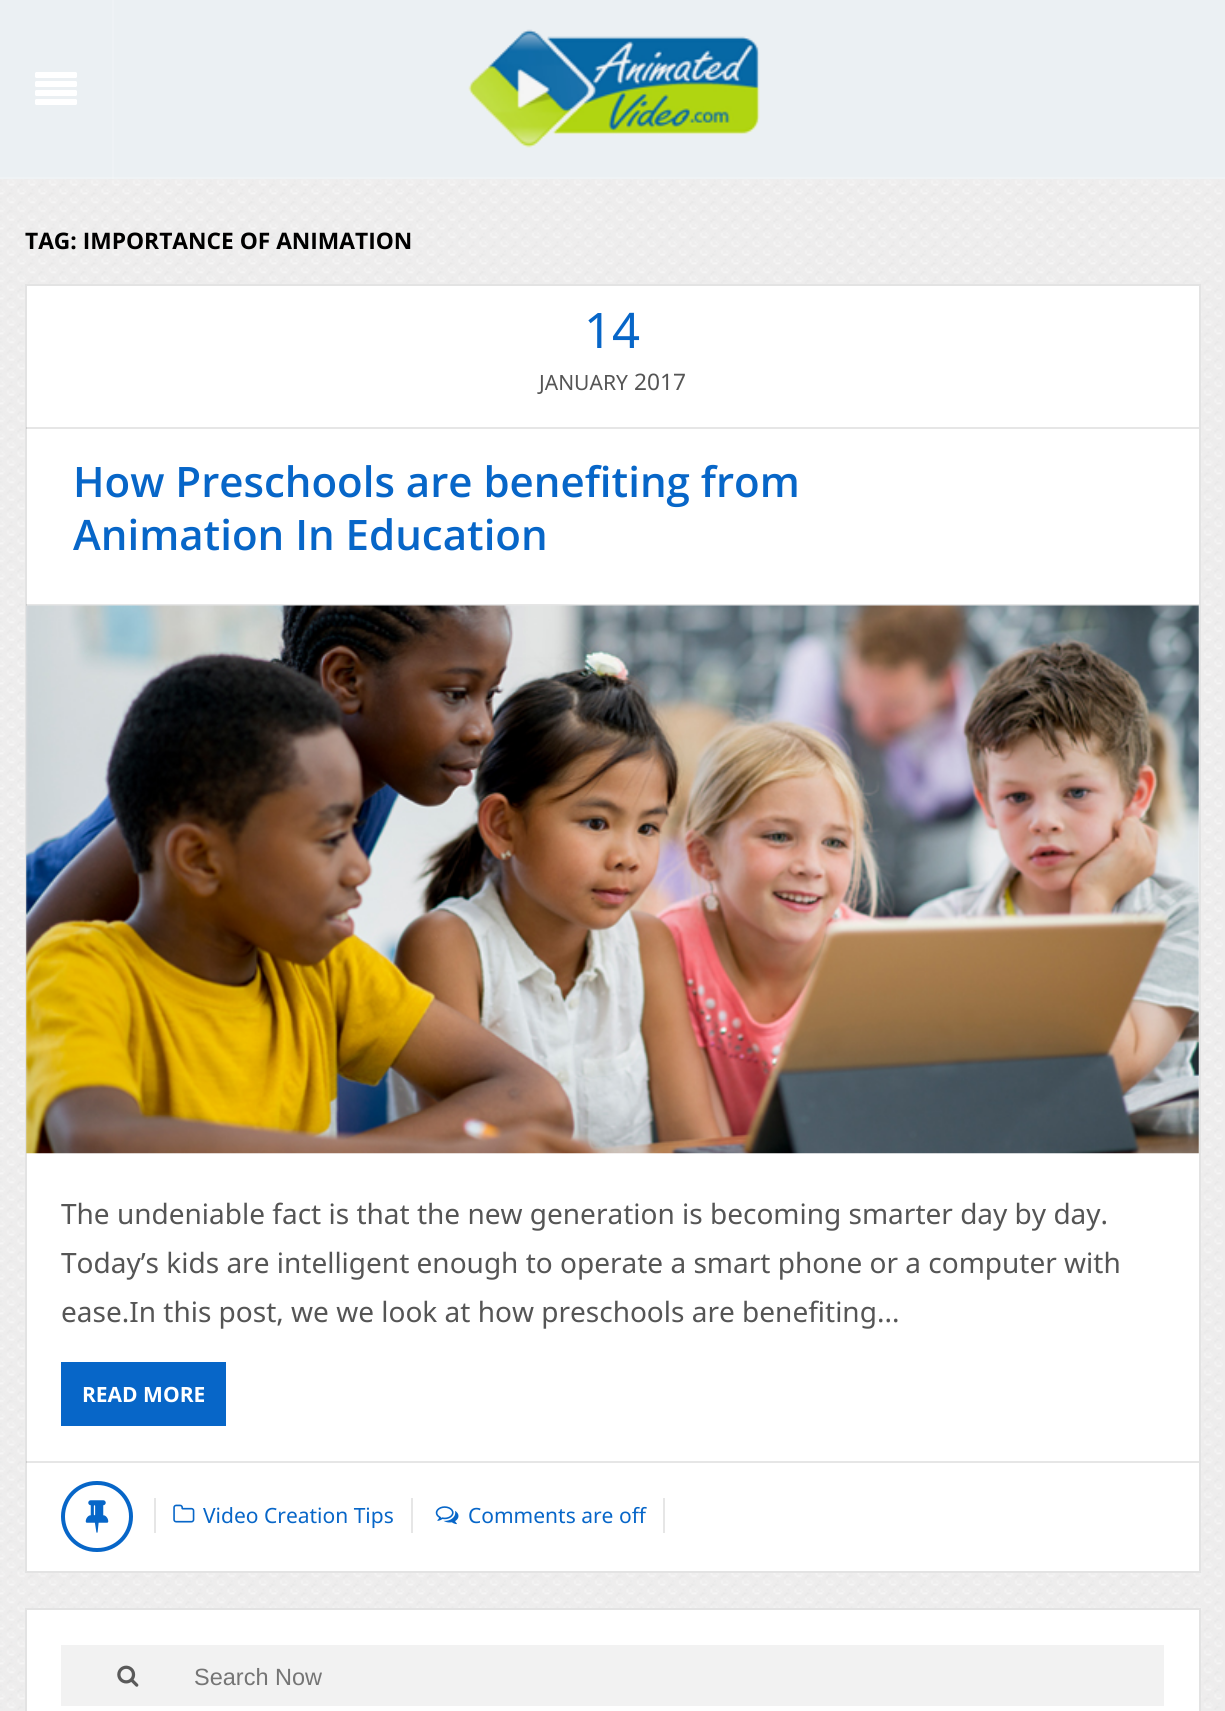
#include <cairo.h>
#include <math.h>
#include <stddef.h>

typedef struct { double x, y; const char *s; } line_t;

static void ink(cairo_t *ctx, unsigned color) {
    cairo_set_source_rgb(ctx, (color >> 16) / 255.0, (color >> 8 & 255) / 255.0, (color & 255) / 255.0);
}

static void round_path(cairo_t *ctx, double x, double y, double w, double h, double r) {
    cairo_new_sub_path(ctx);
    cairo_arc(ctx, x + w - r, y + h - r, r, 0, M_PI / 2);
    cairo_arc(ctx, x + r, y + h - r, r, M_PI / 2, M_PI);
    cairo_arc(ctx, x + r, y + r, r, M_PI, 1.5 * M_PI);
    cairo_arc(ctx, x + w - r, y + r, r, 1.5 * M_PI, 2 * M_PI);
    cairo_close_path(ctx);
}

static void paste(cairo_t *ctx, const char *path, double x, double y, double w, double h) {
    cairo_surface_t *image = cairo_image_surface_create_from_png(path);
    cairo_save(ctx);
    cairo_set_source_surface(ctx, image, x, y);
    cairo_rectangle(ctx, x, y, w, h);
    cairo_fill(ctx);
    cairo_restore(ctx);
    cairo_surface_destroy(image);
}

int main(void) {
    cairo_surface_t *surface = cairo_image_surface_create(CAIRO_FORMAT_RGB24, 1225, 1711);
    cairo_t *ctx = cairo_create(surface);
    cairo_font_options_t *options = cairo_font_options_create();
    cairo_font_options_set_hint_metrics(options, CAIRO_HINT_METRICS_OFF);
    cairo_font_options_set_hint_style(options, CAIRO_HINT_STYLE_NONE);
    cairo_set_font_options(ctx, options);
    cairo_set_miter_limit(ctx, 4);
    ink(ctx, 0xEEEDED);
    cairo_paint(ctx);
    paste(ctx, "media/1.png", 0, 179, 1223, 1531);
    ink(ctx, 0xEBF0F3);
    cairo_rectangle(ctx, 0, 0, 1225, 177);
    cairo_fill(ctx);
    ink(ctx, 0xEFF3F5);
    cairo_rectangle(ctx, 0, 177, 1225, 2);
    cairo_fill(ctx);
    cairo_set_source_rgba(ctx, 1, 1, 1, 0.15);
    cairo_rectangle(ctx, 112, 0, 2, 179);
    cairo_fill(ctx);
    paste(ctx, "media/2.png", 35, 72, 42, 33);
    paste(ctx, "media/3.png", 468, 29, 292, 119);
    cairo_select_font_face(ctx, "Open Sans", CAIRO_FONT_SLANT_NORMAL, CAIRO_FONT_WEIGHT_BOLD);
    cairo_set_font_size(ctx, 22.75);
    ink(ctx, 0x000000);
    cairo_move_to(ctx, 25, 249);
    cairo_show_text(ctx, "TAG: IMPORTANCE OF ANIMATION");
    ink(ctx, 0xFFFFFF);
    cairo_rectangle(ctx, 26, 285, 1174, 1287);
    cairo_fill_preserve(ctx);
    ink(ctx, 0xE3E3E3);
    cairo_stroke(ctx);
    cairo_set_source_rgba(ctx, 0, 0, 0, 0.1);
    cairo_rectangle(ctx, 26, 604, 1173, 2);
    cairo_fill(ctx);
    cairo_rectangle(ctx, 26, 427, 1173, 2);
    cairo_fill(ctx);
    cairo_select_font_face(ctx, "Noto Sans", CAIRO_FONT_SLANT_NORMAL, CAIRO_FONT_WEIGHT_NORMAL);
    cairo_set_font_size(ctx, 49);
    ink(ctx, 0x0766C8);
    cairo_move_to(ctx, 584, 348);
    cairo_show_text(ctx, "14");
    cairo_set_font_size(ctx, 21);
    ink(ctx, 0x555555);
    cairo_move_to(ctx, 539, 390);
    cairo_show_text(ctx, "JANUARY");
    cairo_set_font_size(ctx, 22.75);
    cairo_move_to(ctx, 634, 390);
    cairo_show_text(ctx, "2017");
    cairo_select_font_face(ctx, "Open Sans SemiBold", CAIRO_FONT_SLANT_NORMAL, CAIRO_FONT_WEIGHT_NORMAL);
    cairo_set_font_size(ctx, 42);
    ink(ctx, 0x0766C8);
    cairo_move_to(ctx, 73, 497);
    cairo_show_text(ctx, "How Preschools are benefiting from");
    cairo_move_to(ctx, 73, 550);
    cairo_show_text(ctx, "Animation In Education");
    paste(ctx, "media/4.png", 26, 605, 1173, 549);
    cairo_select_font_face(ctx, "Noto Sans", CAIRO_FONT_SLANT_NORMAL, CAIRO_FONT_WEIGHT_NORMAL);
    cairo_set_font_size(ctx, 28);
    ink(ctx, 0x555555);
    {
        static const line_t items[] = {
            {61, 1224, "The undeniable fact is that the new generation is becoming smarter day by day."},
            {61, 1273, "Today’s kids are intelligent enough to operate a smart phone or a computer with"},
            {61, 1322, "ease.In this post, we we look at how preschools are benefiting..."},
        };
        for (size_t i = 0; i < sizeof items / sizeof *items; i++) {
            cairo_move_to(ctx, items[i].x, items[i].y);
            cairo_show_text(ctx, items[i].s);
        }
    }
    ink(ctx, 0x0766C8);
    cairo_rectangle(ctx, 61, 1362, 165, 64);
    cairo_fill(ctx);
    cairo_select_font_face(ctx, "Open Sans", CAIRO_FONT_SLANT_NORMAL, CAIRO_FONT_WEIGHT_BOLD);
    cairo_set_font_size(ctx, 21);
    ink(ctx, 0xFFFFFF);
    cairo_move_to(ctx, 82, 1402);
    cairo_show_text(ctx, "READ MORE");
    cairo_set_source_rgba(ctx, 0, 0, 0, 0.1);
    cairo_rectangle(ctx, 26, 1461, 1173, 2);
    cairo_fill(ctx);
    round_path(ctx, 63, 1483, 68, 67, 33.5);
    ink(ctx, 0x0766C8);
    cairo_set_line_width(ctx, 4);
    cairo_stroke(ctx);
    paste(ctx, "media/5.png", 85, 1500, 24, 33);
    ink(ctx, 0xE6E6E6);
    cairo_rectangle(ctx, 411, 1498, 2, 35);
    cairo_fill(ctx);
    cairo_rectangle(ctx, 154, 1498, 2, 35);
    cairo_fill(ctx);
    paste(ctx, "media/6.png", 173, 1504, 22, 19);
    cairo_select_font_face(ctx, "Noto Sans", CAIRO_FONT_SLANT_NORMAL, CAIRO_FONT_WEIGHT_NORMAL);
    ink(ctx, 0x0766C8);
    cairo_move_to(ctx, 203, 1523);
    cairo_show_text(ctx, "Video Creation Tips");
    ink(ctx, 0xE6E6E6);
    cairo_rectangle(ctx, 663, 1498, 2, 35);
    cairo_fill(ctx);
    paste(ctx, "media/7.png", 435, 1506, 24, 19);
    ink(ctx, 0x0766C8);
    cairo_move_to(ctx, 468, 1523);
    cairo_show_text(ctx, "Comments are off");
    ink(ctx, 0xFFFFFF);
    cairo_rectangle(ctx, 26, 1609, 1174, 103);
    cairo_fill_preserve(ctx);
    ink(ctx, 0xE3E3E3);
    cairo_set_line_width(ctx, 2);
    cairo_stroke(ctx);
    ink(ctx, 0xF2F2F2);
    cairo_rectangle(ctx, 61, 1645, 1103, 61);
    cairo_fill(ctx);
    paste(ctx, "media/8.png", 117, 1665, 22, 22);
    cairo_select_font_face(ctx, "Liberation Sans", CAIRO_FONT_SLANT_NORMAL, CAIRO_FONT_WEIGHT_NORMAL);
    cairo_set_font_size(ctx, 23.5);
    ink(ctx, 0x757575);
    cairo_move_to(ctx, 194, 1685);
    cairo_show_text(ctx, "Search Now");
    cairo_surface_write_to_png(surface, "image.png");
    cairo_font_options_destroy(options);
    cairo_destroy(ctx);
    cairo_surface_destroy(surface);
    return 0;
}
